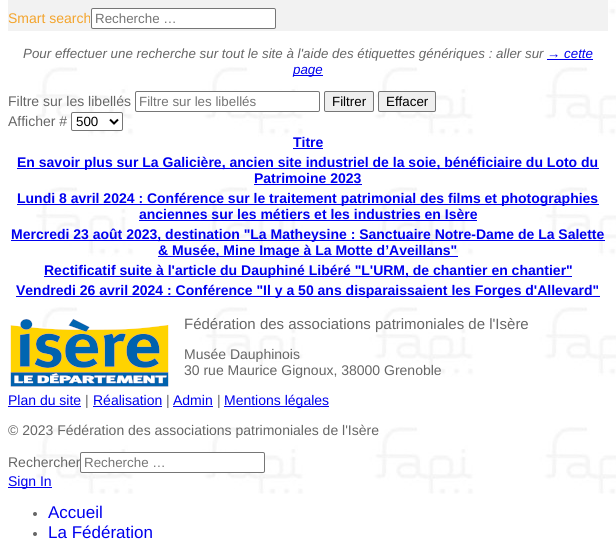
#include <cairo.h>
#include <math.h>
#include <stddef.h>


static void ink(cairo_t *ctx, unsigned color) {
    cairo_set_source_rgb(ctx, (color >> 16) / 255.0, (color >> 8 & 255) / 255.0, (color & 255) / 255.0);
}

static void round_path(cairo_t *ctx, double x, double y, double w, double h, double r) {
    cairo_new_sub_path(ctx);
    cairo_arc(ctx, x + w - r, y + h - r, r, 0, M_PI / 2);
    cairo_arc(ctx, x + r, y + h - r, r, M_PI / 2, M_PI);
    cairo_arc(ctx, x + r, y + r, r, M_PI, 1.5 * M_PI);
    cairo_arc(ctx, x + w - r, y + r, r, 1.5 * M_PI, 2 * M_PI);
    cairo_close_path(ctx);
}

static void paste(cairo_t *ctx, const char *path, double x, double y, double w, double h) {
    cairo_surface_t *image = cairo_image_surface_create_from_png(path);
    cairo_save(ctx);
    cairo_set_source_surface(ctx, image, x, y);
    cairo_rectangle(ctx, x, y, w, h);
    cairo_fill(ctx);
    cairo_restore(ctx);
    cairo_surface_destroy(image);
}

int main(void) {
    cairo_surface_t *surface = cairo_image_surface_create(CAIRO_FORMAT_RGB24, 616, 546);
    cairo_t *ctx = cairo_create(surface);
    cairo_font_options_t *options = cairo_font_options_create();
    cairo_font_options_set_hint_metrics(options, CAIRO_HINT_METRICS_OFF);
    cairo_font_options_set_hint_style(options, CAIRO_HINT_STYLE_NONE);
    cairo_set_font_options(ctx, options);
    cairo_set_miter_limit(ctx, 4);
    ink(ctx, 0xFFFFFF);
    cairo_paint(ctx);
    paste(ctx, "media/1.png", 36, 0, 580, 494);
    ink(ctx, 0xF2F2F2);
    cairo_rectangle(ctx, 8, 0, 600, 31);
    cairo_fill(ctx);
    cairo_select_font_face(ctx, "Liberation Sans", CAIRO_FONT_SLANT_NORMAL, CAIRO_FONT_WEIGHT_NORMAL);
    cairo_set_font_size(ctx, 14);
    ink(ctx, 0xF3A42C);
    cairo_move_to(ctx, 8, 23);
    cairo_show_text(ctx, "Smart search");
    ink(ctx, 0xFFFFFF);
    round_path(ctx, 91.5, 8.5, 184, 20, 1.5);
    cairo_fill_preserve(ctx);
    ink(ctx, 0x767676);
    cairo_set_line_width(ctx, 1);
    cairo_stroke(ctx);
    cairo_set_font_size(ctx, 13.35);
    ink(ctx, 0x757575);
    cairo_move_to(ctx, 95, 23);
    cairo_show_text(ctx, "Recherche …");
    cairo_select_font_face(ctx, "Liberation Sans", CAIRO_FONT_SLANT_ITALIC, CAIRO_FONT_WEIGHT_NORMAL);
    ink(ctx, 0x666666);
    cairo_move_to(ctx, 23, 58);
    cairo_show_text(ctx, "Pour effectuer une recherche sur tout le site à l'aide des étiquettes génériques : aller sur");
    ink(ctx, 0x0000EE);
    cairo_move_to(ctx, 547, 58);
    cairo_show_text(ctx, "→ cette");
    cairo_rectangle(ctx, 547, 59, 46, 1);
    cairo_fill(ctx);
    cairo_rectangle(ctx, 293, 75, 30, 1);
    cairo_fill(ctx);
    cairo_move_to(ctx, 293, 74);
    cairo_show_text(ctx, "page");
    cairo_select_font_face(ctx, "Liberation Sans", CAIRO_FONT_SLANT_NORMAL, CAIRO_FONT_WEIGHT_NORMAL);
    cairo_set_font_size(ctx, 14);
    ink(ctx, 0x666666);
    cairo_move_to(ctx, 8, 106);
    cairo_show_text(ctx, "Filtre sur les libellés");
    ink(ctx, 0xFFFFFF);
    round_path(ctx, 135.5, 91.5, 184, 20, 1.5);
    cairo_fill_preserve(ctx);
    ink(ctx, 0x767676);
    cairo_stroke(ctx);
    cairo_set_font_size(ctx, 13.35);
    ink(ctx, 0x757575);
    cairo_move_to(ctx, 139, 106);
    cairo_show_text(ctx, "Filtre sur les libellés");
    ink(ctx, 0xEFEFEF);
    round_path(ctx, 324.5, 91.5, 49, 20, 1.5);
    cairo_fill_preserve(ctx);
    ink(ctx, 0x767676);
    cairo_stroke(ctx);
    ink(ctx, 0x000000);
    cairo_move_to(ctx, 332, 106);
    cairo_show_text(ctx, "Filtrer");
    ink(ctx, 0xEFEFEF);
    round_path(ctx, 378.5, 91.5, 57, 20, 1.5);
    cairo_fill_preserve(ctx);
    ink(ctx, 0x767676);
    cairo_stroke(ctx);
    ink(ctx, 0x000000);
    cairo_move_to(ctx, 386, 106);
    cairo_show_text(ctx, "Effacer");
    cairo_set_font_size(ctx, 14);
    ink(ctx, 0x666666);
    cairo_move_to(ctx, 8, 126);
    cairo_show_text(ctx, "Afficher #");
    ink(ctx, 0xFFFFFF);
    round_path(ctx, 71.5, 112.5, 51, 18, 1.5);
    cairo_fill_preserve(ctx);
    ink(ctx, 0x767676);
    cairo_stroke(ctx);
    cairo_new_path(ctx);
    cairo_move_to(ctx, 110, 119.5);
    cairo_line_to(ctx, 114, 123.5);
    cairo_line_to(ctx, 118, 119.5);
    ink(ctx, 0x000000);
    cairo_set_line_width(ctx, 2);
    cairo_stroke(ctx);
    cairo_set_font_size(ctx, 13.35);
    cairo_move_to(ctx, 76, 126);
    cairo_show_text(ctx, "500");
    cairo_select_font_face(ctx, "Liberation Sans", CAIRO_FONT_SLANT_NORMAL, CAIRO_FONT_WEIGHT_BOLD);
    cairo_set_font_size(ctx, 14);
    ink(ctx, 0x0000EE);
    cairo_move_to(ctx, 293, 147);
    cairo_show_text(ctx, "Titre");
    cairo_rectangle(ctx, 293, 148, 30, 1);
    cairo_fill(ctx);
    cairo_rectangle(ctx, 17, 168, 582, 1);
    cairo_fill(ctx);
    cairo_move_to(ctx, 17, 167);
    cairo_show_text(ctx, "En savoir plus sur La Galicière, ancien site industriel de la soie, bénéficiaire du Loto du");
    cairo_move_to(ctx, 254, 183);
    cairo_show_text(ctx, "Patrimoine 2023");
    cairo_rectangle(ctx, 254, 184, 108, 1);
    cairo_fill(ctx);
    cairo_rectangle(ctx, 17, 204, 582, 1);
    cairo_fill(ctx);
    cairo_move_to(ctx, 17, 203);
    cairo_show_text(ctx, "Lundi 8 avril 2024 : Conférence sur le traitement patrimonial des films et photographies");
    cairo_move_to(ctx, 139, 219);
    cairo_show_text(ctx, "anciennes sur les métiers et les industries en Isère");
    cairo_rectangle(ctx, 139, 220, 338, 1);
    cairo_fill(ctx);
    cairo_rectangle(ctx, 11, 240, 594, 1);
    cairo_fill(ctx);
    cairo_move_to(ctx, 11, 239);
    cairo_show_text(ctx, "Mercredi 23 août 2023, destination \"La Matheysine : Sanctuaire Notre-Dame de La Salette");
    cairo_rectangle(ctx, 158, 256, 300, 1);
    cairo_fill(ctx);
    cairo_move_to(ctx, 158, 255);
    cairo_show_text(ctx, "& Musée, Mine Image à La Motte d’Aveillans\"");
    cairo_rectangle(ctx, 44, 276, 528, 1);
    cairo_fill(ctx);
    cairo_move_to(ctx, 44, 275);
    cairo_show_text(ctx, "Rectificatif suite à l'article du Dauphiné Libéré \"L'URM, de chantier en chantier\"");
    cairo_rectangle(ctx, 16, 296, 584, 1);
    cairo_fill(ctx);
    cairo_move_to(ctx, 16, 295);
    cairo_show_text(ctx, "Vendredi 26 avril 2024 : Conférence \"Il y a 50 ans disparaissaient les Forges d'Allevard\"");
    paste(ctx, "media/2.png", 10, 318, 159, 69);
    cairo_select_font_face(ctx, "Liberation Sans", CAIRO_FONT_SLANT_NORMAL, CAIRO_FONT_WEIGHT_NORMAL);
    cairo_set_font_size(ctx, 15);
    ink(ctx, 0x666666);
    cairo_move_to(ctx, 184, 329);
    cairo_show_text(ctx, "Fédération des associations patrimoniales de l'Isère");
    cairo_set_font_size(ctx, 14);
    cairo_move_to(ctx, 184, 359);
    cairo_show_text(ctx, "Musée Dauphinois");
    cairo_move_to(ctx, 184, 375);
    cairo_show_text(ctx, "30 rue Maurice Gignoux, 38000 Grenoble");
    ink(ctx, 0x0000EE);
    cairo_move_to(ctx, 8, 405);
    cairo_show_text(ctx, "Plan du site");
    cairo_rectangle(ctx, 8, 406, 73, 1);
    cairo_fill(ctx);
    ink(ctx, 0x666666);
    cairo_move_to(ctx, 85, 405);
    cairo_show_text(ctx, "|");
    ink(ctx, 0x0000EE);
    cairo_move_to(ctx, 93, 405);
    cairo_show_text(ctx, "Réalisation");
    cairo_rectangle(ctx, 93, 406, 69, 1);
    cairo_fill(ctx);
    ink(ctx, 0x666666);
    cairo_move_to(ctx, 166, 405);
    cairo_show_text(ctx, "|");
    ink(ctx, 0x0000EE);
    cairo_move_to(ctx, 173, 405);
    cairo_show_text(ctx, "Admin");
    cairo_rectangle(ctx, 173, 406, 40, 1);
    cairo_fill(ctx);
    ink(ctx, 0x666666);
    cairo_move_to(ctx, 217, 405);
    cairo_show_text(ctx, "|");
    ink(ctx, 0x0000EE);
    cairo_rectangle(ctx, 224, 406, 105, 1);
    cairo_fill(ctx);
    cairo_move_to(ctx, 224, 405);
    cairo_show_text(ctx, "Mentions légales");
    ink(ctx, 0x666666);
    cairo_move_to(ctx, 8, 435);
    cairo_show_text(ctx, "© 2023 Fédération des associations patrimoniales de l'Isère");
    cairo_move_to(ctx, 8, 467);
    cairo_show_text(ctx, "Rechercher");
    ink(ctx, 0xFFFFFF);
    round_path(ctx, 80.5, 452.5, 184, 20, 1.5);
    cairo_fill_preserve(ctx);
    ink(ctx, 0x767676);
    cairo_set_line_width(ctx, 1);
    cairo_stroke(ctx);
    cairo_set_font_size(ctx, 13.35);
    ink(ctx, 0x757575);
    cairo_move_to(ctx, 84, 467);
    cairo_show_text(ctx, "Recherche …");
    ink(ctx, 0x0000EE);
    cairo_rectangle(ctx, 8, 487, 44, 1);
    cairo_fill(ctx);
    cairo_set_font_size(ctx, 14);
    cairo_move_to(ctx, 8, 486);
    cairo_show_text(ctx, "Sign In");
    ink(ctx, 0x666666);
    cairo_new_path(ctx);
    cairo_arc(ctx, 35, 514, 2, 0, 2 * M_PI);
    cairo_fill(ctx);
    cairo_set_font_size(ctx, 17);
    ink(ctx, 0x0000EE);
    cairo_move_to(ctx, 48, 518);
    cairo_show_text(ctx, "Accueil");
    ink(ctx, 0x666666);
    cairo_new_path(ctx);
    cairo_arc(ctx, 35, 534, 2, 0, 2 * M_PI);
    cairo_fill(ctx);
    ink(ctx, 0x0000EE);
    cairo_move_to(ctx, 48, 538);
    cairo_show_text(ctx, "La Fédération");
    cairo_surface_write_to_png(surface, "image.png");
    cairo_font_options_destroy(options);
    cairo_destroy(ctx);
    cairo_surface_destroy(surface);
    return 0;
}
